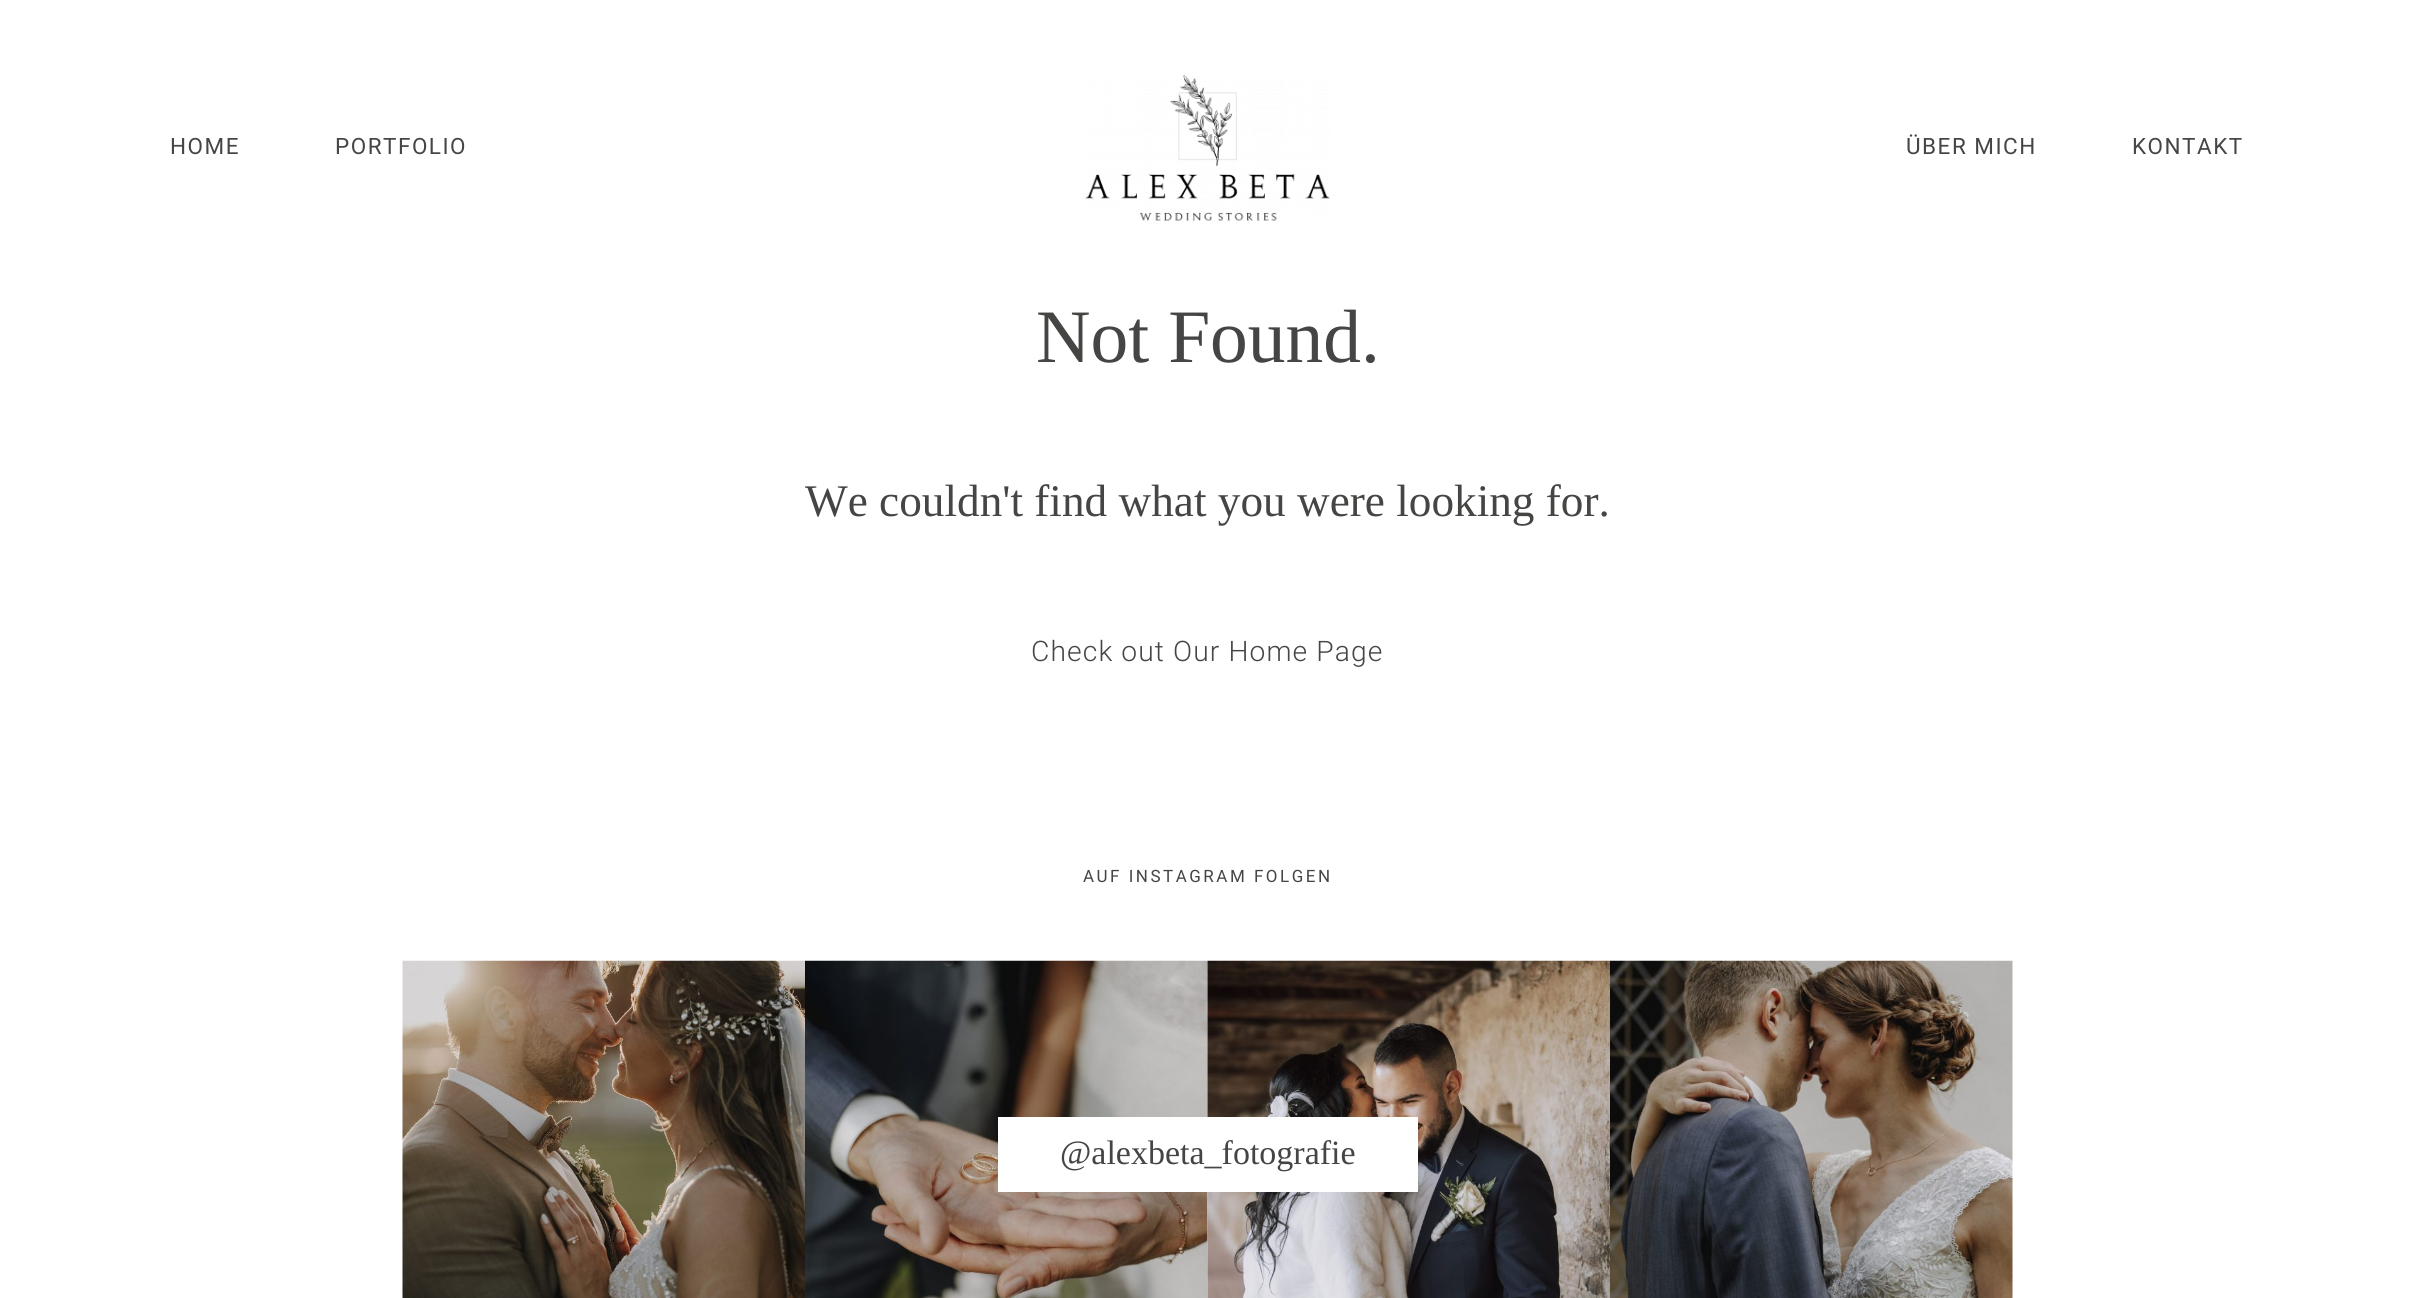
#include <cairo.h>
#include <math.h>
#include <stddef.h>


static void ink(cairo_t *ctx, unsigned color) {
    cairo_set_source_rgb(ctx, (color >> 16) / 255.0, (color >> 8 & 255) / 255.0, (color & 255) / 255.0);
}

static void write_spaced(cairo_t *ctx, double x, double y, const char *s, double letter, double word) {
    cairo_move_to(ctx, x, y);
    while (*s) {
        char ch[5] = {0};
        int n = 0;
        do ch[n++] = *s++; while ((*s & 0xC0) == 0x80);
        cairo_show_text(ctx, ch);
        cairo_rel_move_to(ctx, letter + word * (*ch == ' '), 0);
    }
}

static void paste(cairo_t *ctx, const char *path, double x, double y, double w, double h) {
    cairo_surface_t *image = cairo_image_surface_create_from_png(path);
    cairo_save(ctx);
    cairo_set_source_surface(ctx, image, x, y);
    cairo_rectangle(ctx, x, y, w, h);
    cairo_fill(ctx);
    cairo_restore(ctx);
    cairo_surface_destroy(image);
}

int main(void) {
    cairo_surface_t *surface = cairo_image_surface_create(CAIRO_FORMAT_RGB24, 2414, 1298);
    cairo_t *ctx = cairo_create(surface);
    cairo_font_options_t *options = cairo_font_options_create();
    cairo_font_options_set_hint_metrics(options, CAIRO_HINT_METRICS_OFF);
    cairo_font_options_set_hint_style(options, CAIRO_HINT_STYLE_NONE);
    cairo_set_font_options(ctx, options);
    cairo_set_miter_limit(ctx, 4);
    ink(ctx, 0xFFFFFF);
    cairo_paint(ctx);
    cairo_select_font_face(ctx, "Roboto", CAIRO_FONT_SLANT_NORMAL, CAIRO_FONT_WEIGHT_NORMAL);
    cairo_set_font_size(ctx, 22.5);
    ink(ctx, 0x454543);
    write_spaced(ctx, 170, 154, "HOME", 1.5, 0);
    write_spaced(ctx, 335, 154, "PORTFOLIO", 1.5, 0);
    paste(ctx, "media/1.png", 1085, 75, 245, 146);
    write_spaced(ctx, 1906, 154, "ÜBER MICH", 1.5, 0);
    write_spaced(ctx, 2132, 154, "KONTAKT", 1.5, 0);
    cairo_select_font_face(ctx, "Liberation Serif", CAIRO_FONT_SLANT_NORMAL, CAIRO_FONT_WEIGHT_NORMAL);
    cairo_set_font_size(ctx, 75.5);
    cairo_move_to(ctx, 1036, 362);
    cairo_show_text(ctx, "Not Found.");
    cairo_set_font_size(ctx, 45.25);
    cairo_move_to(ctx, 805, 516);
    cairo_show_text(ctx, "We couldn't find what you were looking for.");
    cairo_select_font_face(ctx, "Roboto Light", CAIRO_FONT_SLANT_NORMAL, CAIRO_FONT_WEIGHT_NORMAL);
    cairo_set_font_size(ctx, 28.25);
    write_spaced(ctx, 1031, 661, "Check out Our Home Page", 1.1, 0);
    cairo_select_font_face(ctx, "Roboto", CAIRO_FONT_SLANT_NORMAL, CAIRO_FONT_WEIGHT_NORMAL);
    cairo_set_font_size(ctx, 17);
    write_spaced(ctx, 1083, 882, "AUF INSTAGRAM FOLGEN", 2.5, 0);
    paste(ctx, "media/3.png", 805, 960, 403, 338);
    paste(ctx, "media/4.png", 1207, 960, 403, 338);
    ink(ctx, 0xFFFFFF);
    cairo_rectangle(ctx, 998, 1117, 420, 75);
    cairo_fill(ctx);
    cairo_select_font_face(ctx, "Liberation Serif", CAIRO_FONT_SLANT_NORMAL, CAIRO_FONT_WEIGHT_NORMAL);
    cairo_set_font_size(ctx, 34);
    ink(ctx, 0x454543);
    cairo_move_to(ctx, 1060, 1164);
    cairo_show_text(ctx, "@alexbeta_fotografie");
    paste(ctx, "media/2.png", 402, 960, 403, 338);
    paste(ctx, "media/5.png", 1610, 960, 403, 338);
    cairo_surface_write_to_png(surface, "image.png");
    cairo_font_options_destroy(options);
    cairo_destroy(ctx);
    cairo_surface_destroy(surface);
    return 0;
}
